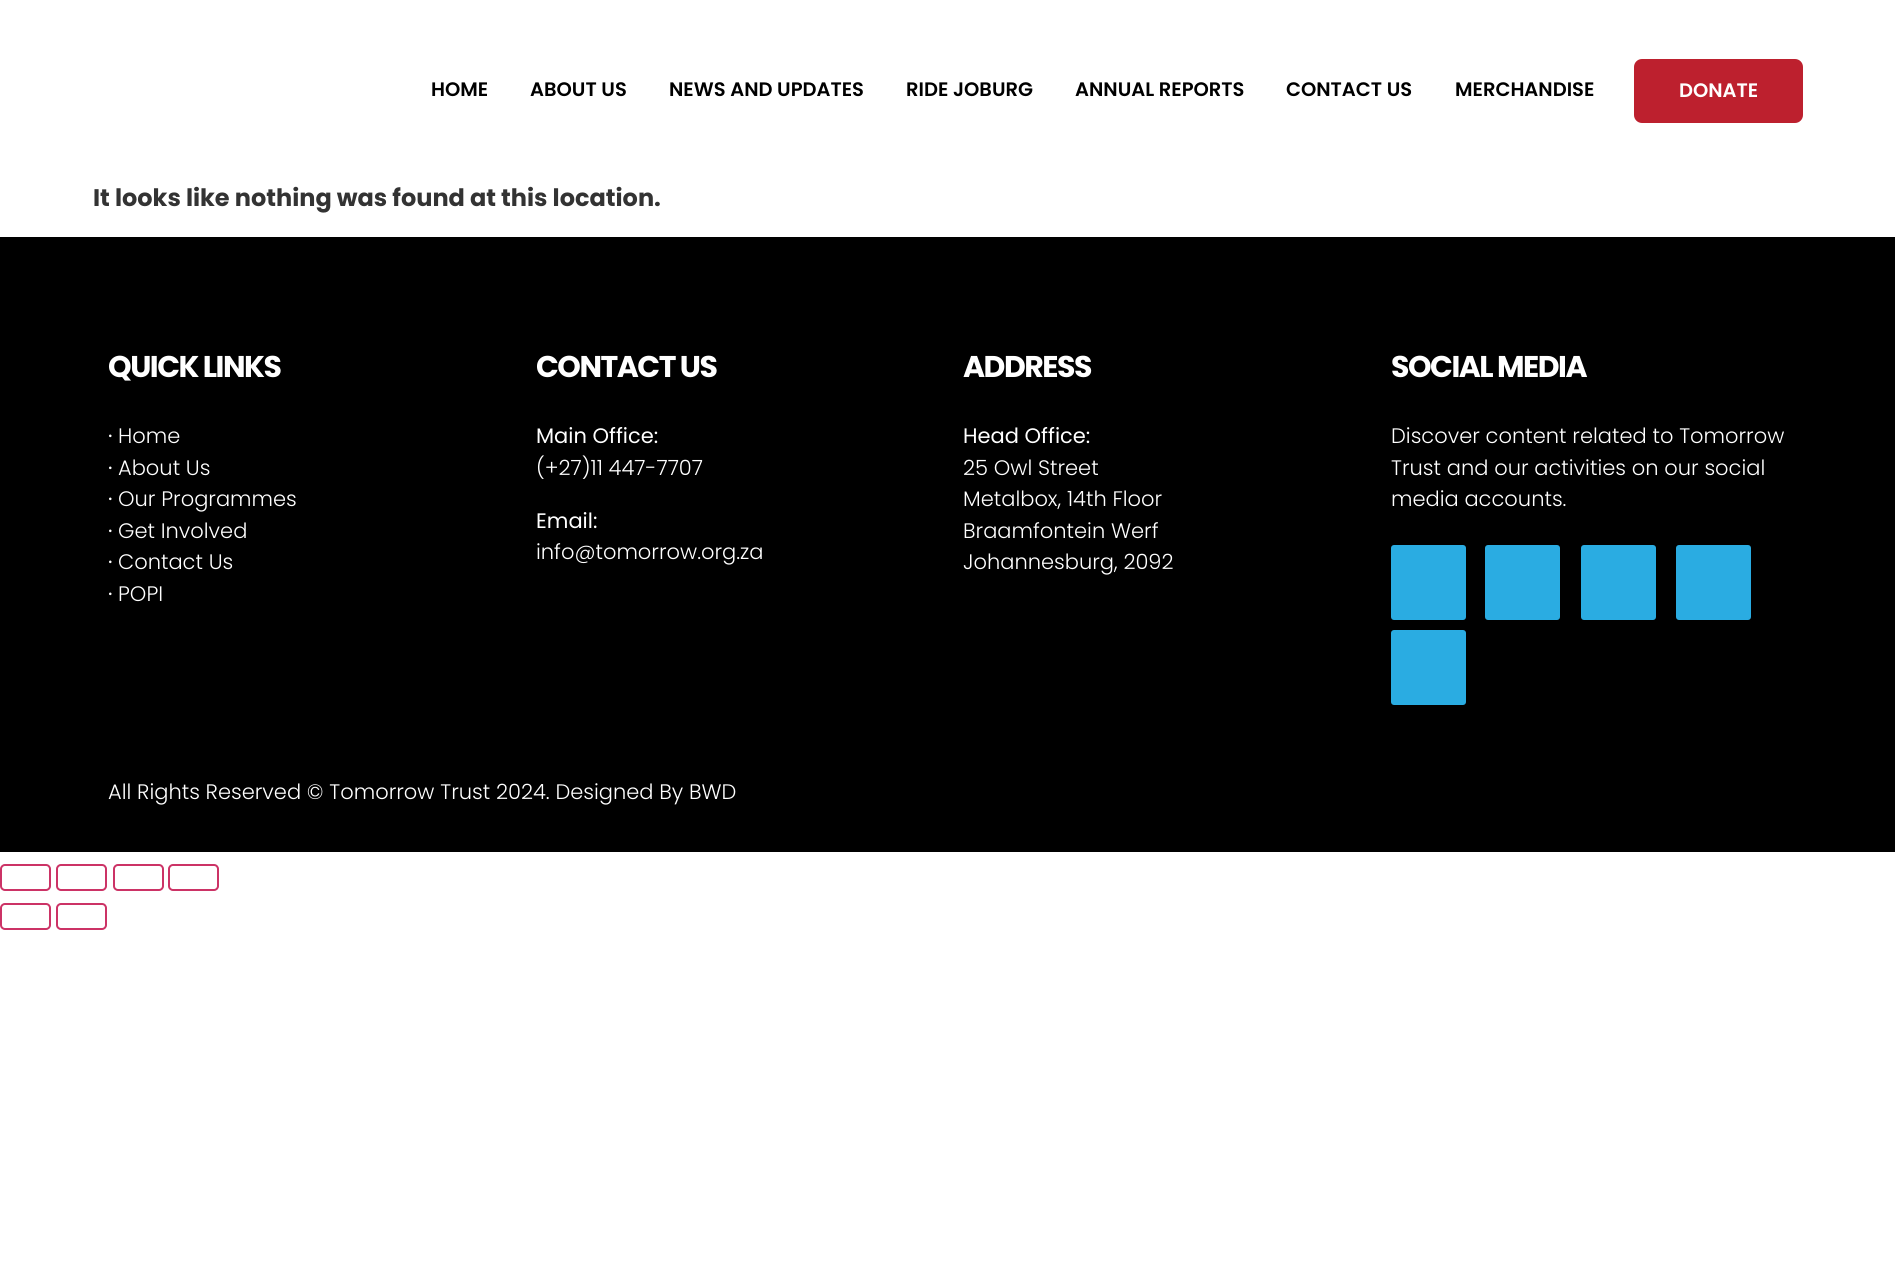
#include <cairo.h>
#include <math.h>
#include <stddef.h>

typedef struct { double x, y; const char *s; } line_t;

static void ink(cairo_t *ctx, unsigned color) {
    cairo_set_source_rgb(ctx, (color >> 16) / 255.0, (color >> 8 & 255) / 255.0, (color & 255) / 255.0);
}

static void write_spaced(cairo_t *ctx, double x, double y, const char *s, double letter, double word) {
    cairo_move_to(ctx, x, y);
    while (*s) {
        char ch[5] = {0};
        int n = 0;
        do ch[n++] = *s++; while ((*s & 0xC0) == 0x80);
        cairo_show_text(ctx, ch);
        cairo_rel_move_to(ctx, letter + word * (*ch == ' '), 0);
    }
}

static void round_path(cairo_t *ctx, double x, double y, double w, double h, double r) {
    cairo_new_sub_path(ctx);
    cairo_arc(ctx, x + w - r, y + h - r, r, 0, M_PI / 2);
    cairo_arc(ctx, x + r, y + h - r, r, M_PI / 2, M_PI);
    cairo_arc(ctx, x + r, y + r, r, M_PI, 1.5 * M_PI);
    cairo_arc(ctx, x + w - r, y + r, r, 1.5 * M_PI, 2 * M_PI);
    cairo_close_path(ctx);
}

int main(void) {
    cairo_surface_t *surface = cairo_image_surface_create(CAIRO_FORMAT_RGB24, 1895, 1282);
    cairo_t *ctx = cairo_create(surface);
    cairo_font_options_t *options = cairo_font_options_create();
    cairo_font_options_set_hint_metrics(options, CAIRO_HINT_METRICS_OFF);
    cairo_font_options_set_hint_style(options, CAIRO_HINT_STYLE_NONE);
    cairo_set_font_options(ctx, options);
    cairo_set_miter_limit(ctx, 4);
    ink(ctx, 0xFFFFFF);
    cairo_paint(ctx);
    cairo_select_font_face(ctx, "Poppins SemiBold", CAIRO_FONT_SLANT_NORMAL, CAIRO_FONT_WEIGHT_NORMAL);
    cairo_set_font_size(ctx, 19.5);
    ink(ctx, 0x000000);
    {
        static const line_t items[] = {
            {431, 96, "HOME"},
            {530, 96, "ABOUT US"},
            {669, 96, "NEWS AND UPDATES"},
            {906, 96, "RIDE JOBURG"},
            {1075, 96, "ANNUAL REPORTS"},
            {1286, 96, "CONTACT US"},
            {1455, 96, "MERCHANDISE"},
        };
        for (size_t i = 0; i < sizeof items / sizeof *items; i++) {
            cairo_move_to(ctx, items[i].x, items[i].y);
            cairo_show_text(ctx, items[i].s);
        }
    }
    ink(ctx, 0xBD202E);
    round_path(ctx, 1634, 59, 169, 64, 8);
    cairo_fill(ctx);
    ink(ctx, 0xFFFFFF);
    cairo_move_to(ctx, 1679, 97);
    cairo_show_text(ctx, "DONATE");
    cairo_select_font_face(ctx, "Poppins", CAIRO_FONT_SLANT_NORMAL, CAIRO_FONT_WEIGHT_BOLD);
    cairo_set_font_size(ctx, 24);
    ink(ctx, 0x333333);
    cairo_move_to(ctx, 93, 206);
    cairo_show_text(ctx, "It looks like nothing was found at this location.");
    ink(ctx, 0x000000);
    cairo_rectangle(ctx, 0, 237, 1895, 615);
    cairo_fill(ctx);
    cairo_set_font_size(ctx, 30);
    ink(ctx, 0xFFFFFF);
    write_spaced(ctx, 108, 377, "QUICK LINKS", -1.5, 0);
    cairo_select_font_face(ctx, "Poppins", CAIRO_FONT_SLANT_NORMAL, CAIRO_FONT_WEIGHT_NORMAL);
    cairo_set_font_size(ctx, 21);
    cairo_move_to(ctx, 108, 443);
    cairo_show_text(ctx, "·");
    cairo_select_font_face(ctx, "Poppins Light", CAIRO_FONT_SLANT_NORMAL, CAIRO_FONT_WEIGHT_NORMAL);
    cairo_move_to(ctx, 118, 443);
    cairo_show_text(ctx, "Home");
    cairo_select_font_face(ctx, "Poppins", CAIRO_FONT_SLANT_NORMAL, CAIRO_FONT_WEIGHT_NORMAL);
    cairo_move_to(ctx, 108, 475);
    cairo_show_text(ctx, "·");
    cairo_select_font_face(ctx, "Poppins Light", CAIRO_FONT_SLANT_NORMAL, CAIRO_FONT_WEIGHT_NORMAL);
    cairo_move_to(ctx, 118, 475);
    cairo_show_text(ctx, "About Us");
    cairo_select_font_face(ctx, "Poppins", CAIRO_FONT_SLANT_NORMAL, CAIRO_FONT_WEIGHT_NORMAL);
    cairo_move_to(ctx, 108, 506);
    cairo_show_text(ctx, "·");
    cairo_select_font_face(ctx, "Poppins Light", CAIRO_FONT_SLANT_NORMAL, CAIRO_FONT_WEIGHT_NORMAL);
    cairo_move_to(ctx, 118, 506);
    cairo_show_text(ctx, "Our Programmes");
    cairo_select_font_face(ctx, "Poppins", CAIRO_FONT_SLANT_NORMAL, CAIRO_FONT_WEIGHT_NORMAL);
    cairo_move_to(ctx, 108, 538);
    cairo_show_text(ctx, "·");
    cairo_select_font_face(ctx, "Poppins Light", CAIRO_FONT_SLANT_NORMAL, CAIRO_FONT_WEIGHT_NORMAL);
    cairo_move_to(ctx, 118, 538);
    cairo_show_text(ctx, "Get Involved");
    cairo_select_font_face(ctx, "Poppins", CAIRO_FONT_SLANT_NORMAL, CAIRO_FONT_WEIGHT_NORMAL);
    cairo_move_to(ctx, 108, 569);
    cairo_show_text(ctx, "·");
    cairo_select_font_face(ctx, "Poppins Light", CAIRO_FONT_SLANT_NORMAL, CAIRO_FONT_WEIGHT_NORMAL);
    cairo_move_to(ctx, 118, 569);
    cairo_show_text(ctx, "Contact Us");
    cairo_select_font_face(ctx, "Poppins", CAIRO_FONT_SLANT_NORMAL, CAIRO_FONT_WEIGHT_NORMAL);
    cairo_move_to(ctx, 108, 601);
    cairo_show_text(ctx, "·");
    cairo_select_font_face(ctx, "Poppins Light", CAIRO_FONT_SLANT_NORMAL, CAIRO_FONT_WEIGHT_NORMAL);
    cairo_move_to(ctx, 118, 601);
    cairo_show_text(ctx, "POPI");
    cairo_select_font_face(ctx, "Poppins", CAIRO_FONT_SLANT_NORMAL, CAIRO_FONT_WEIGHT_BOLD);
    cairo_set_font_size(ctx, 30);
    write_spaced(ctx, 536, 377, "CONTACT US", -1.5, 0);
    cairo_select_font_face(ctx, "Poppins", CAIRO_FONT_SLANT_NORMAL, CAIRO_FONT_WEIGHT_NORMAL);
    cairo_set_font_size(ctx, 21);
    cairo_move_to(ctx, 536, 443);
    cairo_show_text(ctx, "Main Office:");
    cairo_select_font_face(ctx, "Poppins Light", CAIRO_FONT_SLANT_NORMAL, CAIRO_FONT_WEIGHT_NORMAL);
    cairo_move_to(ctx, 536, 475);
    cairo_show_text(ctx, "(+27)11 447-7707");
    cairo_select_font_face(ctx, "Poppins", CAIRO_FONT_SLANT_NORMAL, CAIRO_FONT_WEIGHT_NORMAL);
    cairo_move_to(ctx, 536, 528);
    cairo_show_text(ctx, "Email:");
    cairo_select_font_face(ctx, "Poppins Light", CAIRO_FONT_SLANT_NORMAL, CAIRO_FONT_WEIGHT_NORMAL);
    cairo_move_to(ctx, 536, 559);
    cairo_show_text(ctx, "info@tomorrow.org.za");
    cairo_select_font_face(ctx, "Poppins", CAIRO_FONT_SLANT_NORMAL, CAIRO_FONT_WEIGHT_BOLD);
    cairo_set_font_size(ctx, 30);
    write_spaced(ctx, 963, 377, "ADDRESS", -1.5, 0);
    cairo_select_font_face(ctx, "Poppins", CAIRO_FONT_SLANT_NORMAL, CAIRO_FONT_WEIGHT_NORMAL);
    cairo_set_font_size(ctx, 21);
    cairo_move_to(ctx, 963, 443);
    cairo_show_text(ctx, "Head Office:");
    cairo_select_font_face(ctx, "Poppins Light", CAIRO_FONT_SLANT_NORMAL, CAIRO_FONT_WEIGHT_NORMAL);
    {
        static const line_t items[] = {
            {963, 475, "25 Owl Street"},
            {963, 506, "Metalbox, 14th Floor"},
            {963, 538, "Braamfontein Werf"},
            {963, 569, "Johannesburg, 2092"},
        };
        for (size_t i = 0; i < sizeof items / sizeof *items; i++) {
            cairo_move_to(ctx, items[i].x, items[i].y);
            cairo_show_text(ctx, items[i].s);
        }
    }
    cairo_select_font_face(ctx, "Poppins", CAIRO_FONT_SLANT_NORMAL, CAIRO_FONT_WEIGHT_BOLD);
    cairo_set_font_size(ctx, 30);
    write_spaced(ctx, 1391, 377, "SOCIAL MEDIA", -1.5, 0);
    cairo_select_font_face(ctx, "Poppins Light", CAIRO_FONT_SLANT_NORMAL, CAIRO_FONT_WEIGHT_NORMAL);
    cairo_set_font_size(ctx, 21);
    {
        static const line_t items[] = {
            {1391, 443, "Discover content related to Tomorrow"},
            {1391, 475, "Trust and our activities on our social"},
            {1391, 506, "media accounts."},
        };
        for (size_t i = 0; i < sizeof items / sizeof *items; i++) {
            cairo_move_to(ctx, items[i].x, items[i].y);
            cairo_show_text(ctx, items[i].s);
        }
    }
    ink(ctx, 0x2AACE2);
    round_path(ctx, 1391, 545, 75, 75, 3);
    cairo_fill(ctx);
    round_path(ctx, 1485, 545, 75, 75, 3);
    cairo_fill(ctx);
    round_path(ctx, 1581, 545, 75, 75, 3);
    cairo_fill(ctx);
    round_path(ctx, 1676, 545, 75, 75, 3);
    cairo_fill(ctx);
    round_path(ctx, 1391, 630, 75, 75, 3);
    cairo_fill(ctx);
    ink(ctx, 0xFFFFFF);
    cairo_move_to(ctx, 108, 799);
    cairo_show_text(ctx, "All Rights Reserved © Tomorrow Trust 2024. Designed By BWD");
    round_path(ctx, 1, 865, 49, 25, 4);
    ink(ctx, 0xCC3366);
    cairo_stroke(ctx);
    round_path(ctx, 57, 865, 49, 25, 4);
    cairo_stroke(ctx);
    round_path(ctx, 114, 865, 49, 25, 4);
    cairo_stroke(ctx);
    round_path(ctx, 169, 865, 49, 25, 4);
    cairo_stroke(ctx);
    round_path(ctx, 1, 904, 49, 25, 4);
    cairo_stroke(ctx);
    round_path(ctx, 57, 904, 49, 25, 4);
    cairo_stroke(ctx);
    cairo_surface_write_to_png(surface, "image.png");
    cairo_font_options_destroy(options);
    cairo_destroy(ctx);
    cairo_surface_destroy(surface);
    return 0;
}
